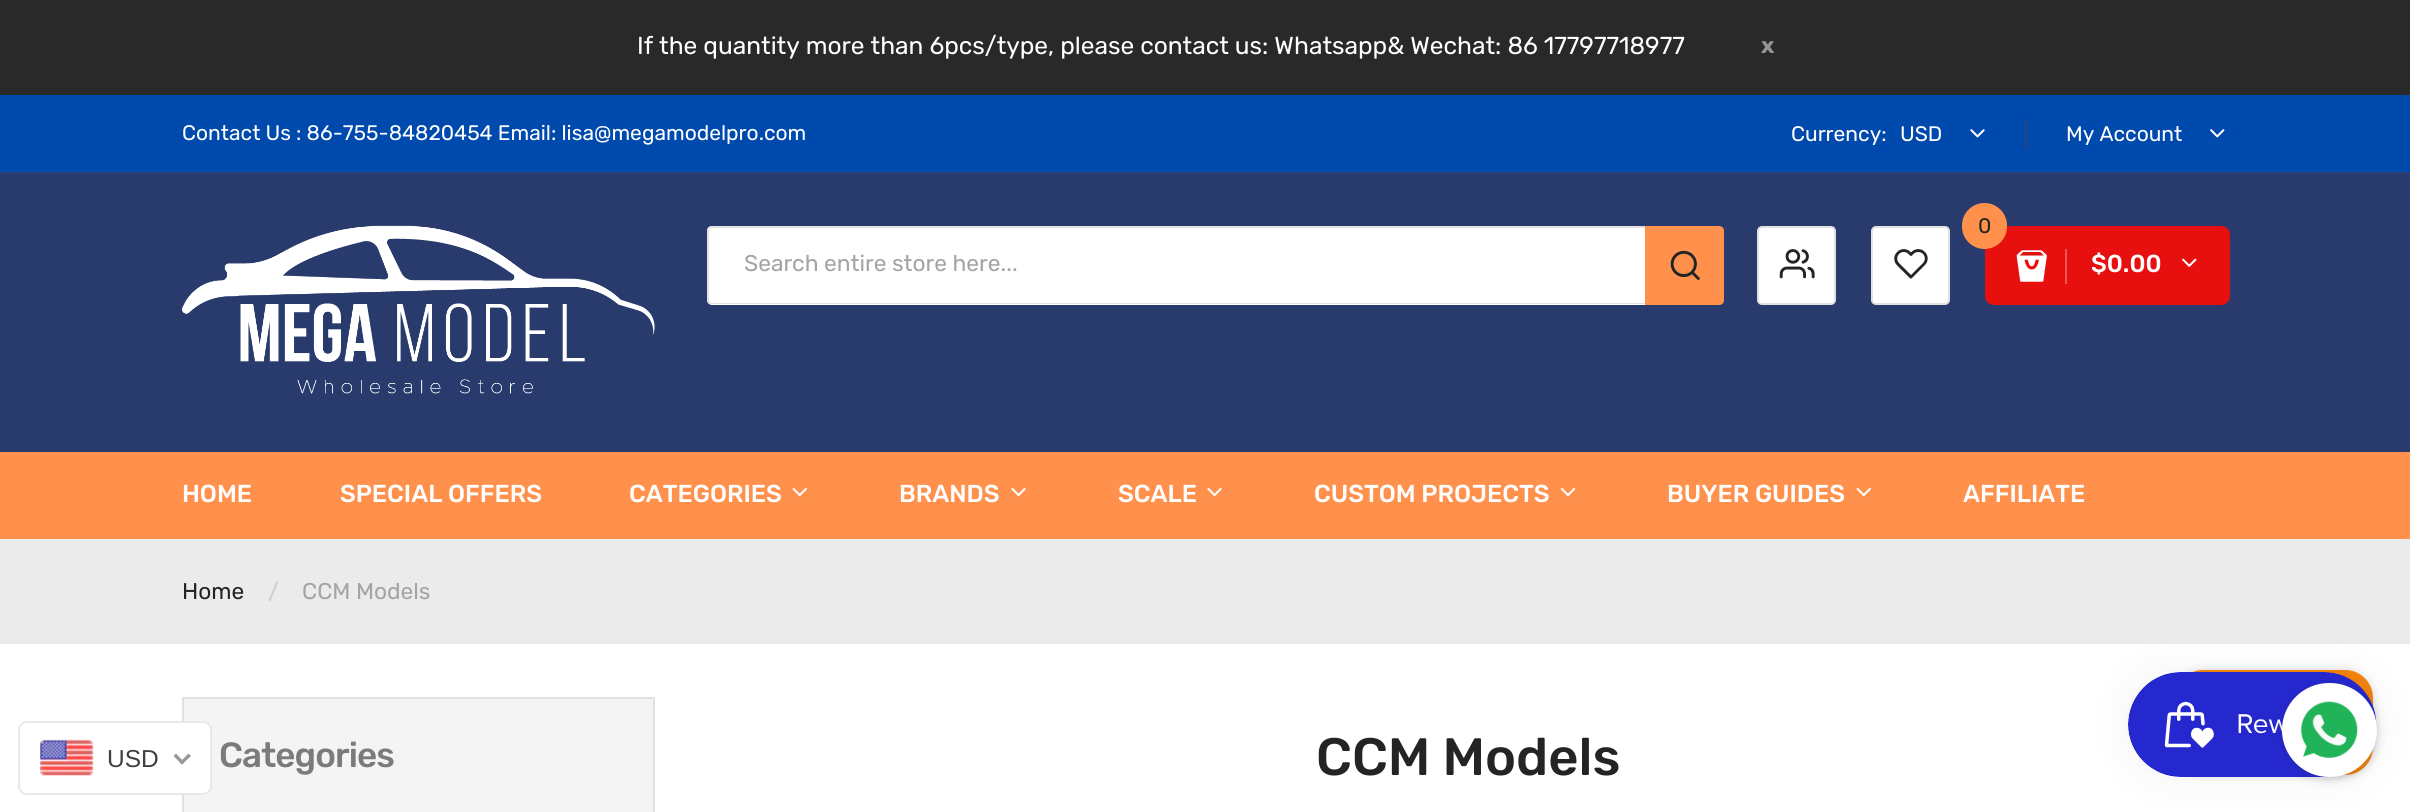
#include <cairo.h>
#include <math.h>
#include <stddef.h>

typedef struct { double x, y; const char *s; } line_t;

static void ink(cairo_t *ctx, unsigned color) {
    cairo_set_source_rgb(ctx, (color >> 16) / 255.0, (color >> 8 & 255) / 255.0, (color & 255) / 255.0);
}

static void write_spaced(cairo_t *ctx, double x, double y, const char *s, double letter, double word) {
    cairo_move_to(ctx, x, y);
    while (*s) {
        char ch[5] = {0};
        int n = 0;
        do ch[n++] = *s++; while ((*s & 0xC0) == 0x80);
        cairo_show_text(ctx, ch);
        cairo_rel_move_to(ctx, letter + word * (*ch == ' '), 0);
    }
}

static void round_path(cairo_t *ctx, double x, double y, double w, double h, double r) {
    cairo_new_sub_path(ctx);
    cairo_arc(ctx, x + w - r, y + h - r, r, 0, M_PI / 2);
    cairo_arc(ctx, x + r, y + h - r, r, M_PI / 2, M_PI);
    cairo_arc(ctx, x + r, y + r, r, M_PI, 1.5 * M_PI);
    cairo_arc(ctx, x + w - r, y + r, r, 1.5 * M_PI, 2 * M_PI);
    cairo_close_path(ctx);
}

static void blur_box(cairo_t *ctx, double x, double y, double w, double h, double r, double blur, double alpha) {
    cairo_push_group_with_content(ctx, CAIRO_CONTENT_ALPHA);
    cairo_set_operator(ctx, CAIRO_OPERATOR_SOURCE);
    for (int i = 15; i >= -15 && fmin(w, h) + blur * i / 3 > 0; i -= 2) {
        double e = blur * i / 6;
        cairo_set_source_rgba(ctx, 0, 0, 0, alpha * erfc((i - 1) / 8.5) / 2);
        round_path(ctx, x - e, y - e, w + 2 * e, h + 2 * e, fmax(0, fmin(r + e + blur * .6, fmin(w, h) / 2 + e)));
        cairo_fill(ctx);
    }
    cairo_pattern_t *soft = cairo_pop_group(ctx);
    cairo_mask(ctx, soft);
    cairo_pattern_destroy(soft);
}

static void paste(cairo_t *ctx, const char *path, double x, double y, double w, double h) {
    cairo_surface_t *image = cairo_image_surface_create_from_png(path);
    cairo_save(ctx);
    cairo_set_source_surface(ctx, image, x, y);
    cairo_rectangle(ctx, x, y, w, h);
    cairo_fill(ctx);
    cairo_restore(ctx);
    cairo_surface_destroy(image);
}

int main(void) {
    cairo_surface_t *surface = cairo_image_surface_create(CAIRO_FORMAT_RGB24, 2410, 812);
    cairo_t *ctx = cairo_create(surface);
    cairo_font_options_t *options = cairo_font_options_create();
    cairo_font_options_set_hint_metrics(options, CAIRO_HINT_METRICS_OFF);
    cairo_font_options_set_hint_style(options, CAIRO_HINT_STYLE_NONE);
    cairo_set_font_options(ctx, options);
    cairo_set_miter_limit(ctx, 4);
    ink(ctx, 0xFFFFFF);
    cairo_paint(ctx);
    ink(ctx, 0x292929);
    cairo_rectangle(ctx, 0, 0, 2410, 95);
    cairo_fill(ctx);
    cairo_select_font_face(ctx, "Rubik", CAIRO_FONT_SLANT_NORMAL, CAIRO_FONT_WEIGHT_NORMAL);
    cairo_set_font_size(ctx, 24.5);
    ink(ctx, 0xFFFFFF);
    cairo_move_to(ctx, 637, 54);
    cairo_show_text(ctx, "If the quantity more than 6pcs/type, please contact us: Whatsapp& Wechat: 86 17797718977");
    cairo_select_font_face(ctx, "Rubik", CAIRO_FONT_SLANT_NORMAL, CAIRO_FONT_WEIGHT_BOLD);
    cairo_set_font_size(ctx, 22.75);
    ink(ctx, 0x949494);
    cairo_move_to(ctx, 1761, 53);
    cairo_show_text(ctx, "x");
    ink(ctx, 0x004AAD);
    cairo_rectangle(ctx, 0, 95, 2410, 77);
    cairo_fill(ctx);
    ink(ctx, 0x2E427D);
    cairo_rectangle(ctx, 0, 172, 2410, 1);
    cairo_fill(ctx);
    cairo_select_font_face(ctx, "Rubik", CAIRO_FONT_SLANT_NORMAL, CAIRO_FONT_WEIGHT_NORMAL);
    cairo_set_font_size(ctx, 21);
    ink(ctx, 0xFFFFFF);
    cairo_move_to(ctx, 182, 140);
    cairo_show_text(ctx, "Contact Us : 86-755-84820454 Email: lisa@megamodelpro.com");
    ink(ctx, 0x2E427D);
    cairo_rectangle(ctx, 2025, 119, 2, 30);
    cairo_fill(ctx);
    ink(ctx, 0xFFFFFF);
    cairo_move_to(ctx, 1791, 141);
    cairo_show_text(ctx, "Currency:");
    cairo_move_to(ctx, 1900, 141);
    cairo_show_text(ctx, "USD");
    paste(ctx, "media/1.png", 1970, 129, 15, 9);
    cairo_move_to(ctx, 2066, 141);
    cairo_show_text(ctx, "My Account");
    paste(ctx, "media/2.png", 2210, 129, 15, 9);
    ink(ctx, 0x293A6C);
    cairo_rectangle(ctx, 0, 173, 2410, 279);
    cairo_fill(ctx);
    paste(ctx, "media/3.png", 182, 225, 473, 169);
    ink(ctx, 0xFFFFFF);
    round_path(ctx, 707, 226, 1015, 79, 5);
    cairo_fill(ctx);
    ink(ctx, 0xE1E1E1);
    cairo_set_fill_rule(ctx, CAIRO_FILL_RULE_EVEN_ODD);
    cairo_new_path(ctx);
    cairo_move_to(ctx, 712, 226);
    cairo_line_to(ctx, 1717, 226);
    cairo_curve_to(ctx, 1720, 226, 1722, 228, 1722, 231);
    cairo_line_to(ctx, 1722, 299);
    cairo_curve_to(ctx, 1722, 302, 1720, 304, 1717, 304);
    cairo_line_to(ctx, 712, 304);
    cairo_curve_to(ctx, 709, 304, 707, 302, 707, 299);
    cairo_line_to(ctx, 707, 231);
    cairo_curve_to(ctx, 707, 228, 709, 226, 712, 226);
    cairo_close_path(ctx);
    cairo_move_to(ctx, 712, 228);
    cairo_line_to(ctx, 1717, 228);
    cairo_curve_to(ctx, 1720, 228, 1722, 229, 1722, 231);
    cairo_line_to(ctx, 1722, 299);
    cairo_curve_to(ctx, 1722, 301, 1720, 303, 1717, 303);
    cairo_line_to(ctx, 712, 303);
    cairo_curve_to(ctx, 710, 303, 709, 301, 709, 299);
    cairo_line_to(ctx, 709, 231);
    cairo_curve_to(ctx, 709, 229, 710, 228, 712, 228);
    cairo_close_path(ctx);
    cairo_fill(ctx);
    cairo_set_font_size(ctx, 22.75);
    ink(ctx, 0xA4A4A4);
    cairo_move_to(ctx, 744, 271);
    cairo_show_text(ctx, "Search entire store here...");
    ink(ctx, 0xFF914D);
    cairo_new_path(ctx);
    cairo_move_to(ctx, 1645, 226);
    cairo_line_to(ctx, 1719, 226);
    cairo_curve_to(ctx, 1722, 226, 1724, 228, 1724, 231);
    cairo_line_to(ctx, 1724, 300);
    cairo_curve_to(ctx, 1724, 303, 1722, 305, 1719, 305);
    cairo_line_to(ctx, 1645, 305);
    cairo_close_path(ctx);
    cairo_fill(ctx);
    paste(ctx, "media/4.png", 1670, 250, 30, 30);
    ink(ctx, 0xFFFFFF);
    round_path(ctx, 1758, 227, 77, 77, 4);
    cairo_fill_preserve(ctx);
    ink(ctx, 0xE1E1E1);
    cairo_stroke(ctx);
    paste(ctx, "media/5.png", 1779, 249, 36, 30);
    ink(ctx, 0xFFFFFF);
    round_path(ctx, 1872, 227, 77, 77, 4);
    cairo_fill_preserve(ctx);
    ink(ctx, 0xE1E1E1);
    cairo_stroke(ctx);
    paste(ctx, "media/6.png", 1894, 249, 34, 30);
    ink(ctx, 0xE80F0F);
    round_path(ctx, 1985, 226, 245, 79, 9);
    cairo_fill(ctx);
    ink(ctx, 0xFF914D);
    round_path(ctx, 1962, 203, 45, 46, 22.5);
    cairo_fill(ctx);
    cairo_set_font_size(ctx, 21);
    ink(ctx, 0x242424);
    cairo_move_to(ctx, 1978, 233);
    cairo_show_text(ctx, "0");
    cairo_select_font_face(ctx, "Rubik Medium", CAIRO_FONT_SLANT_NORMAL, CAIRO_FONT_WEIGHT_NORMAL);
    cairo_set_font_size(ctx, 24.5);
    ink(ctx, 0xFFFFFF);
    cairo_move_to(ctx, 2091, 272);
    cairo_show_text(ctx, "$0.00");
    paste(ctx, "media/7.png", 2182, 258, 15, 9);
    paste(ctx, "media/8.png", 2016, 250, 31, 32);
    ink(ctx, 0xEF5757);
    cairo_rectangle(ctx, 2065, 249, 2, 35);
    cairo_fill(ctx);
    ink(ctx, 0xFF914D);
    cairo_rectangle(ctx, 0, 452, 2410, 87);
    cairo_fill(ctx);
    ink(ctx, 0xFFFFFF);
    {
        static const line_t items[] = {
            {182, 502, "HOME"},
            {340, 502, "SPECIAL OFFERS"},
            {629, 502, "CATEGORIES"},
        };
        for (size_t i = 0; i < sizeof items / sizeof *items; i++) {
            cairo_move_to(ctx, items[i].x, items[i].y);
            cairo_show_text(ctx, items[i].s);
        }
    }
    paste(ctx, "media/9.png", 792, 488, 15, 9);
    cairo_move_to(ctx, 899, 502);
    cairo_show_text(ctx, "BRANDS");
    paste(ctx, "media/10.png", 1011, 488, 15, 9);
    cairo_move_to(ctx, 1118, 502);
    cairo_show_text(ctx, "SCALE");
    paste(ctx, "media/10.png", 1207, 488, 15, 9);
    cairo_move_to(ctx, 1314, 502);
    cairo_show_text(ctx, "CUSTOM PROJECTS");
    paste(ctx, "media/11.png", 1560, 488, 16, 9);
    cairo_move_to(ctx, 1667, 502);
    cairo_show_text(ctx, "BUYER GUIDES");
    paste(ctx, "media/9.png", 1856, 488, 15, 9);
    cairo_move_to(ctx, 1963, 502);
    cairo_show_text(ctx, "AFFILIATE");
    ink(ctx, 0xEBEBEB);
    cairo_rectangle(ctx, 0, 539, 2410, 105);
    cairo_fill(ctx);
    cairo_select_font_face(ctx, "Rubik", CAIRO_FONT_SLANT_NORMAL, CAIRO_FONT_WEIGHT_NORMAL);
    cairo_set_font_size(ctx, 22.75);
    ink(ctx, 0x242424);
    cairo_move_to(ctx, 182, 599);
    cairo_show_text(ctx, "Home");
    ink(ctx, 0xCCCCCC);
    cairo_move_to(ctx, 268, 599);
    cairo_show_text(ctx, "/");
    ink(ctx, 0xA4A4A4);
    cairo_move_to(ctx, 302, 599);
    cairo_show_text(ctx, "CCM Models");
    ink(ctx, 0xF4F4F4);
    cairo_rectangle(ctx, 183, 698, 471, 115);
    cairo_fill_preserve(ctx);
    ink(ctx, 0xE1E1E1);
    cairo_stroke(ctx);
    cairo_select_font_face(ctx, "Rubik Medium", CAIRO_FONT_SLANT_NORMAL, CAIRO_FONT_WEIGHT_NORMAL);
    cairo_set_font_size(ctx, 35);
    ink(ctx, 0x7B7B7B);
    write_spaced(ctx, 219, 767, "Categories", -0.9, 0);
    cairo_set_font_size(ctx, 52.5);
    ink(ctx, 0x242424);
    cairo_move_to(ctx, 1316, 775);
    cairo_show_text(ctx, "CCM Models");
    ink(ctx, 0x000000);
    blur_box(ctx, 2175, 670, 198, 105, 28, 4.5, 0.15);
    ink(ctx, 0xF5830A);
    round_path(ctx, 2175, 670, 198, 105, 28);
    cairo_fill(ctx);
    ink(ctx, 0x000000);
    blur_box(ctx, 2128, 672, 249, 105, 52.5, 22, 0.05);
    paste(ctx, "media/12.png", 2128, 672, 249, 105);
    ink(ctx, 0xFFFFFF);
    round_path(ctx, 19, 722, 192, 72, 8);
    cairo_fill_preserve(ctx);
    ink(ctx, 0xE8E8E8);
    cairo_stroke(ctx);
    paste(ctx, "media/13.png", 40, 739, 54, 37);
    cairo_select_font_face(ctx, "Liberation Sans", CAIRO_FONT_SLANT_NORMAL, CAIRO_FONT_WEIGHT_NORMAL);
    cairo_set_font_size(ctx, 24.5);
    ink(ctx, 0x403F3F);
    cairo_move_to(ctx, 107, 767);
    cairo_show_text(ctx, "USD");
    ink(ctx, 0x999999);
    cairo_set_fill_rule(ctx, CAIRO_FILL_RULE_WINDING);
    cairo_new_path(ctx);
    cairo_move_to(ctx, 188.5, 753.5);
    cairo_line_to(ctx, 191, 756);
    cairo_line_to(ctx, 182, 764.5);
    cairo_line_to(ctx, 179.5, 762.5);
    cairo_close_path(ctx);
    cairo_fill(ctx);
    cairo_new_path(ctx);
    cairo_move_to(ctx, 176, 753.5);
    cairo_line_to(ctx, 184.5, 762.5);
    cairo_line_to(ctx, 182, 764.5);
    cairo_line_to(ctx, 173.5, 756);
    cairo_close_path(ctx);
    cairo_fill(ctx);
    ink(ctx, 0x1B1B1B);
    blur_box(ctx, 2282, 684, 95, 95, 47.5, 5, 0.2);
    ink(ctx, 0xFFFFFF);
    round_path(ctx, 2283, 684, 93, 92, 46);
    cairo_fill_preserve(ctx);
    cairo_stroke(ctx);
    paste(ctx, "media/14.png", 2301, 701, 57, 57);
    cairo_surface_write_to_png(surface, "image.png");
    cairo_font_options_destroy(options);
    cairo_destroy(ctx);
    cairo_surface_destroy(surface);
    return 0;
}
